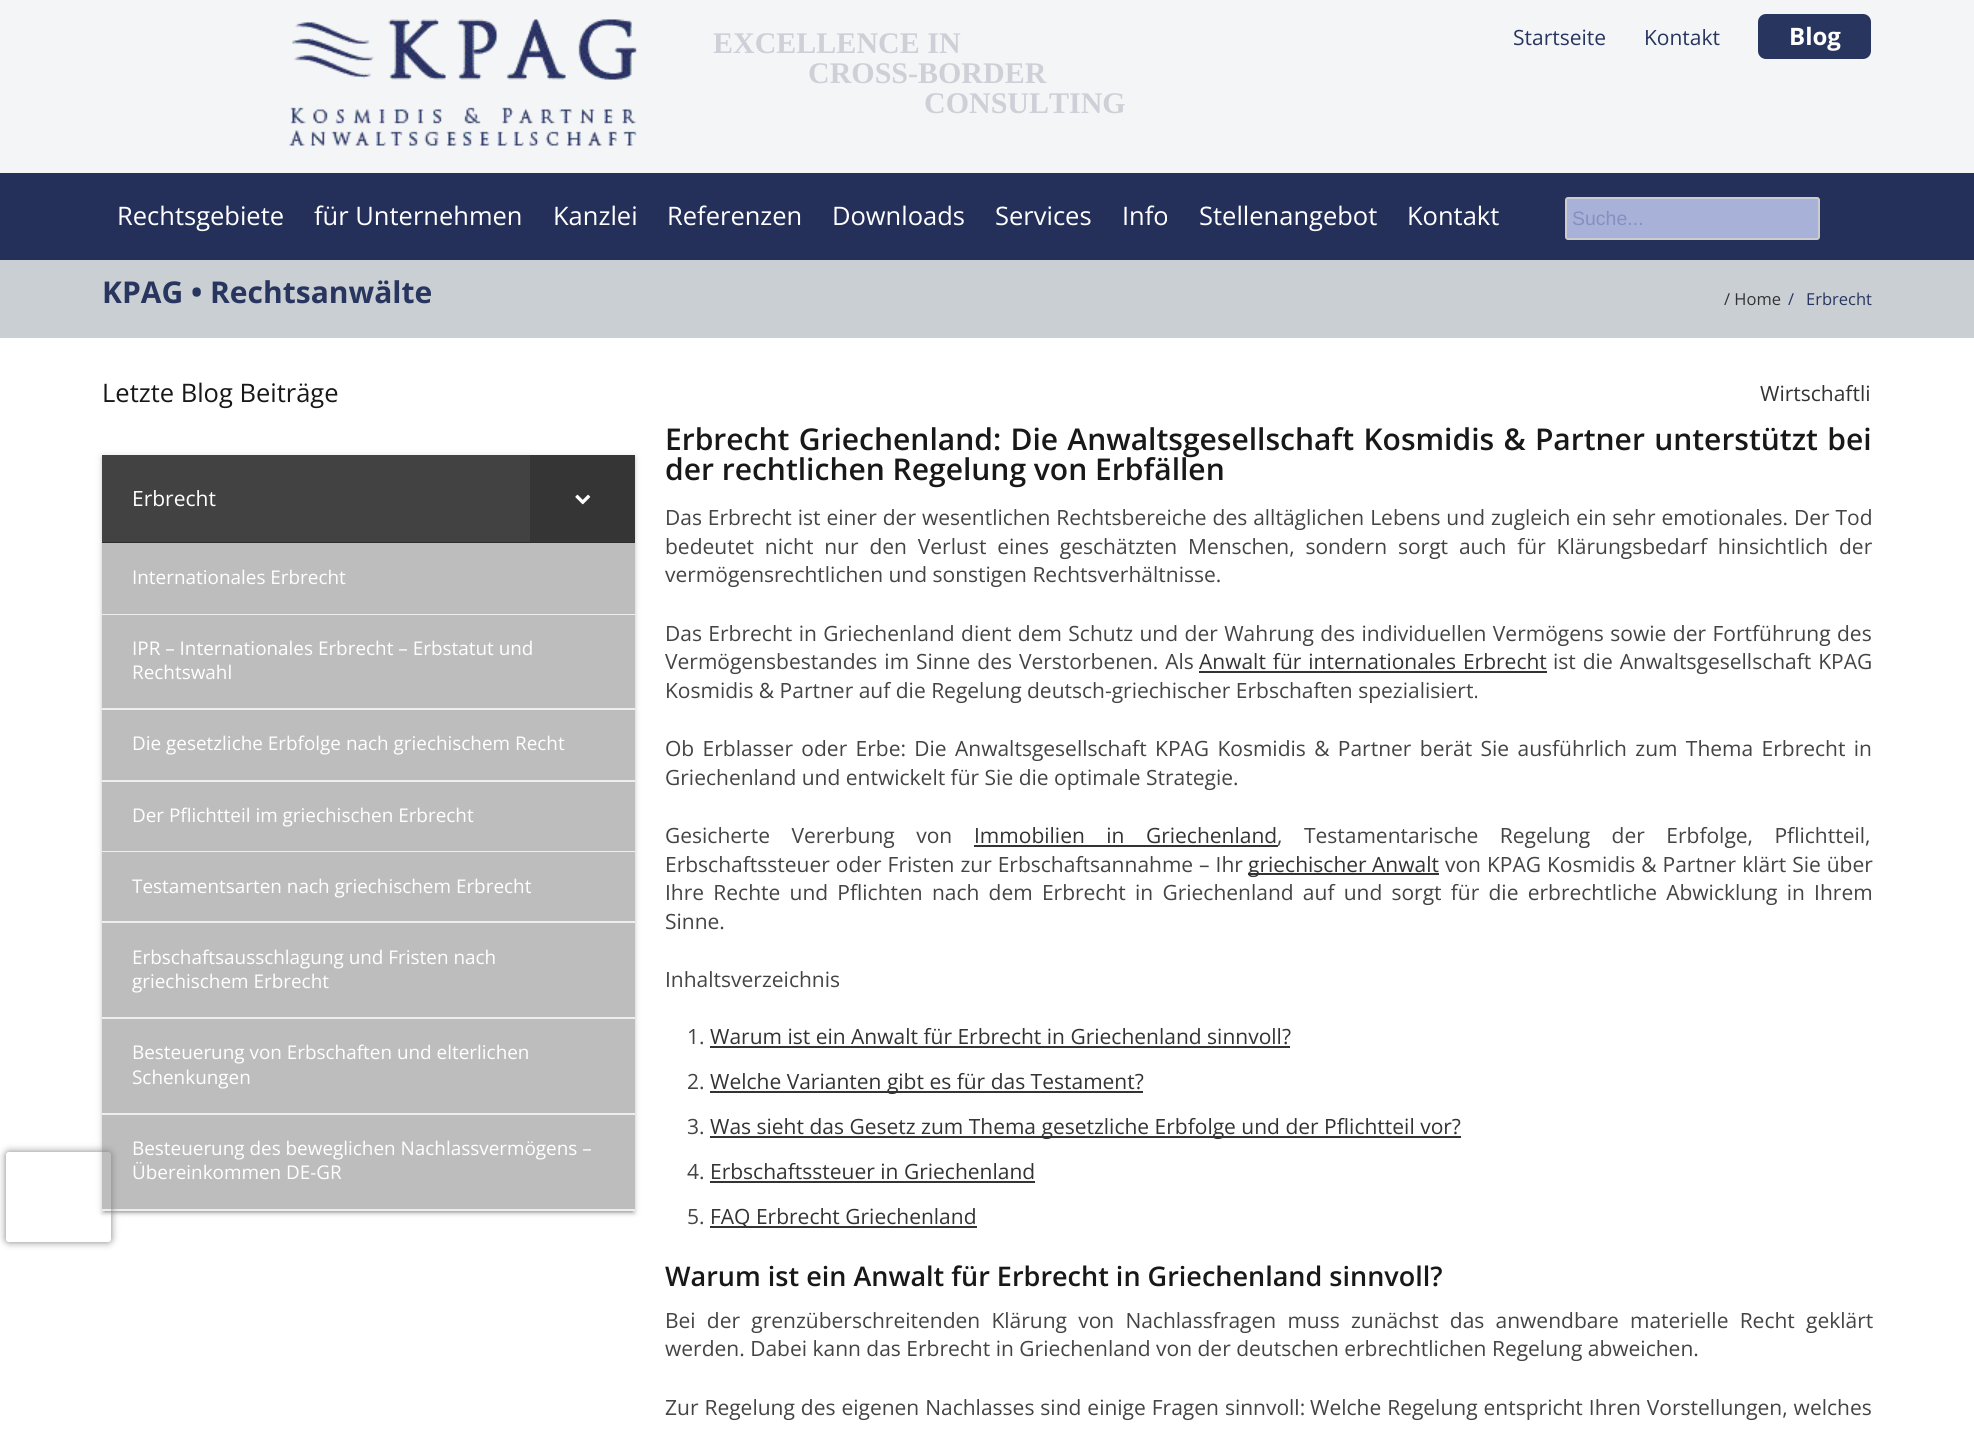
#include <cairo.h>
#include <math.h>
#include <stddef.h>

typedef struct { double x, y; const char *s; } line_t;

static void ink(cairo_t *ctx, unsigned color) {
    cairo_set_source_rgb(ctx, (color >> 16) / 255.0, (color >> 8 & 255) / 255.0, (color & 255) / 255.0);
}

static void write_spaced(cairo_t *ctx, double x, double y, const char *s, double letter, double word) {
    cairo_move_to(ctx, x, y);
    while (*s) {
        char ch[5] = {0};
        int n = 0;
        do ch[n++] = *s++; while ((*s & 0xC0) == 0x80);
        cairo_show_text(ctx, ch);
        cairo_rel_move_to(ctx, letter + word * (*ch == ' '), 0);
    }
}

static void round_path(cairo_t *ctx, double x, double y, double w, double h, double r) {
    cairo_new_sub_path(ctx);
    cairo_arc(ctx, x + w - r, y + h - r, r, 0, M_PI / 2);
    cairo_arc(ctx, x + r, y + h - r, r, M_PI / 2, M_PI);
    cairo_arc(ctx, x + r, y + r, r, M_PI, 1.5 * M_PI);
    cairo_arc(ctx, x + w - r, y + r, r, 1.5 * M_PI, 2 * M_PI);
    cairo_close_path(ctx);
}

static void blur_box(cairo_t *ctx, double x, double y, double w, double h, double r, double blur, double alpha) {
    cairo_push_group_with_content(ctx, CAIRO_CONTENT_ALPHA);
    cairo_set_operator(ctx, CAIRO_OPERATOR_SOURCE);
    for (int i = 15; i >= -15 && fmin(w, h) + blur * i / 3 > 0; i -= 2) {
        double e = blur * i / 6;
        cairo_set_source_rgba(ctx, 0, 0, 0, alpha * erfc((i - 1) / 8.5) / 2);
        round_path(ctx, x - e, y - e, w + 2 * e, h + 2 * e, fmax(0, fmin(r + e + blur * .6, fmin(w, h) / 2 + e)));
        cairo_fill(ctx);
    }
    cairo_pattern_t *soft = cairo_pop_group(ctx);
    cairo_mask(ctx, soft);
    cairo_pattern_destroy(soft);
}

static void paste(cairo_t *ctx, const char *path, double x, double y, double w, double h) {
    cairo_surface_t *image = cairo_image_surface_create_from_png(path);
    cairo_save(ctx);
    cairo_set_source_surface(ctx, image, x, y);
    cairo_rectangle(ctx, x, y, w, h);
    cairo_fill(ctx);
    cairo_restore(ctx);
    cairo_surface_destroy(image);
}

int main(void) {
    cairo_surface_t *surface = cairo_image_surface_create(CAIRO_FORMAT_RGB24, 1974, 1429);
    cairo_t *ctx = cairo_create(surface);
    cairo_font_options_t *options = cairo_font_options_create();
    cairo_font_options_set_hint_metrics(options, CAIRO_HINT_METRICS_OFF);
    cairo_font_options_set_hint_style(options, CAIRO_HINT_STYLE_NONE);
    cairo_set_font_options(ctx, options);
    cairo_set_miter_limit(ctx, 4);
    ink(ctx, 0xFFFFFF);
    cairo_paint(ctx);
    ink(ctx, 0xF4F5F7);
    cairo_rectangle(ctx, 0, 0, 1974, 173);
    cairo_fill(ctx);
    paste(ctx, "media/1.png", 289, 19, 348, 127);
    cairo_select_font_face(ctx, "Liberation Serif", CAIRO_FONT_SLANT_NORMAL, CAIRO_FONT_WEIGHT_BOLD);
    cairo_set_font_size(ctx, 30);
    ink(ctx, 0xCED0D7);
    {
        static const line_t items[] = {
            {713, 53, "EXCELLENCE IN"},
            {808, 83, "CROSS-BORDER"},
            {924, 113, "CONSULTING"},
        };
        for (size_t i = 0; i < sizeof items / sizeof *items; i++) {
            cairo_move_to(ctx, items[i].x, items[i].y);
            cairo_show_text(ctx, items[i].s);
        }
    }
    cairo_select_font_face(ctx, "Open Sans", CAIRO_FONT_SLANT_NORMAL, CAIRO_FONT_WEIGHT_NORMAL);
    cairo_set_font_size(ctx, 21);
    ink(ctx, 0x28355F);
    cairo_move_to(ctx, 1513, 45);
    cairo_show_text(ctx, "Startseite");
    cairo_move_to(ctx, 1644, 45);
    cairo_show_text(ctx, "Kontakt");
    round_path(ctx, 1758, 14, 113, 45, 8);
    cairo_fill(ctx);
    cairo_select_font_face(ctx, "Open Sans", CAIRO_FONT_SLANT_NORMAL, CAIRO_FONT_WEIGHT_BOLD);
    cairo_set_font_size(ctx, 24);
    ink(ctx, 0xFFFFFF);
    cairo_move_to(ctx, 1789, 45);
    cairo_show_text(ctx, "Blog");
    ink(ctx, 0x25305A);
    cairo_rectangle(ctx, 0, 173, 1974, 87);
    cairo_fill(ctx);
    cairo_select_font_face(ctx, "Open Sans", CAIRO_FONT_SLANT_NORMAL, CAIRO_FONT_WEIGHT_NORMAL);
    cairo_set_font_size(ctx, 25.5);
    ink(ctx, 0xFFFFFF);
    {
        static const line_t items[] = {
            {117, 225, "Rechtsgebiete"},
            {314, 225, "für Unternehmen"},
            {553, 225, "Kanzlei"},
            {667, 225, "Referenzen"},
            {832, 225, "Downloads"},
            {995, 225, "Services"},
            {1122, 225, "Info"},
            {1199, 225, "Stellenangebot"},
            {1407, 225, "Kontakt"},
        };
        for (size_t i = 0; i < sizeof items / sizeof *items; i++) {
            cairo_move_to(ctx, items[i].x, items[i].y);
            cairo_show_text(ctx, items[i].s);
        }
    }
    ink(ctx, 0xA8B1D8);
    round_path(ctx, 1566, 198, 253, 41, 2);
    cairo_fill_preserve(ctx);
    ink(ctx, 0xCCCCCC);
    cairo_stroke(ctx);
    cairo_select_font_face(ctx, "Liberation Sans", CAIRO_FONT_SLANT_NORMAL, CAIRO_FONT_WEIGHT_NORMAL);
    cairo_set_font_size(ctx, 19.5);
    ink(ctx, 0x858FC0);
    cairo_move_to(ctx, 1572, 225);
    cairo_show_text(ctx, "Suche...");
    ink(ctx, 0xCACFD3);
    cairo_rectangle(ctx, 0, 260, 1974, 78);
    cairo_fill(ctx);
    cairo_select_font_face(ctx, "Open Sans", CAIRO_FONT_SLANT_NORMAL, CAIRO_FONT_WEIGHT_BOLD);
    cairo_set_font_size(ctx, 30);
    ink(ctx, 0x28355F);
    cairo_move_to(ctx, 102, 303);
    cairo_show_text(ctx, "KPAG • Rechtsanwälte");
    cairo_select_font_face(ctx, "Open Sans", CAIRO_FONT_SLANT_NORMAL, CAIRO_FONT_WEIGHT_NORMAL);
    cairo_set_font_size(ctx, 16.5);
    ink(ctx, 0x333333);
    cairo_move_to(ctx, 1724, 305);
    cairo_show_text(ctx, "/ Home");
    ink(ctx, 0x28355F);
    cairo_move_to(ctx, 1788, 305);
    cairo_show_text(ctx, "/");
    cairo_move_to(ctx, 1806, 305);
    cairo_show_text(ctx, "Erbrecht");
    cairo_set_font_size(ctx, 25.5);
    ink(ctx, 0x181818);
    cairo_move_to(ctx, 102, 402);
    cairo_show_text(ctx, "Letzte Blog Beiträge");
    cairo_set_font_size(ctx, 21);
    ink(ctx, 0x333333);
    cairo_move_to(ctx, 1760, 401);
    cairo_show_text(ctx, "Wirtschaftli");
    ink(ctx, 0x000000);
    blur_box(ctx, 102, 456, 533, 756, 0, 4, 0.12);
    blur_box(ctx, 105, 462, 527, 750, 0, 1, 0.2);
    blur_box(ctx, 102, 458, 533, 756, 0, 1.5, 0.14);
    ink(ctx, 0xBDBDBD);
    cairo_rectangle(ctx, 102, 1115, 533, 94);
    cairo_fill(ctx);
    ink(ctx, 0xEEEEEE);
    cairo_rectangle(ctx, 102, 1209, 533, 2);
    cairo_fill(ctx);
    cairo_save(ctx);
    cairo_set_fill_rule(ctx, CAIRO_FILL_RULE_EVEN_ODD);
    cairo_new_path(ctx);
    cairo_move_to(ctx, 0, 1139);
    cairo_line_to(ctx, 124, 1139);
    cairo_line_to(ctx, 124, 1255);
    cairo_line_to(ctx, 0, 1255);
    cairo_close_path(ctx);
    cairo_move_to(ctx, 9, 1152);
    cairo_line_to(ctx, 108, 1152);
    cairo_curve_to(ctx, 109.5, 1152, 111, 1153.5, 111, 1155);
    cairo_line_to(ctx, 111, 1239);
    cairo_curve_to(ctx, 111, 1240.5, 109.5, 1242, 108, 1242);
    cairo_line_to(ctx, 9, 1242);
    cairo_curve_to(ctx, 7.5, 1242, 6, 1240.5, 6, 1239);
    cairo_line_to(ctx, 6, 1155);
    cairo_curve_to(ctx, 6, 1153.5, 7.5, 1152, 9, 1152);
    cairo_close_path(ctx);
    cairo_clip(ctx);
    ink(ctx, 0x808080);
    blur_box(ctx, 6, 1152, 105, 90, 3, 4, 1);
    cairo_restore(ctx);
    ink(ctx, 0x424242);
    cairo_rectangle(ctx, 102, 455, 533, 88);
    cairo_fill(ctx);
    cairo_set_source_rgba(ctx, 0, 0, 0, 0.3);
    cairo_rectangle(ctx, 102, 542, 533, 1);
    cairo_fill(ctx);
    ink(ctx, 0xFFFFFF);
    cairo_move_to(ctx, 132, 506);
    cairo_show_text(ctx, "Erbrecht");
    ink(ctx, 0x353535);
    cairo_rectangle(ctx, 530, 455, 105, 87);
    cairo_fill(ctx);
    paste(ctx, "media/2.png", 575, 494, 16, 11);
    ink(ctx, 0xBDBDBD);
    cairo_rectangle(ctx, 102, 543, 533, 71);
    cairo_fill(ctx);
    ink(ctx, 0xEEEEEE);
    cairo_rectangle(ctx, 102, 614, 533, 1);
    cairo_fill(ctx);
    cairo_set_font_size(ctx, 18.9);
    ink(ctx, 0xFFFFFF);
    cairo_move_to(ctx, 132, 584);
    cairo_show_text(ctx, "Internationales Erbrecht");
    ink(ctx, 0xBDBDBD);
    cairo_rectangle(ctx, 102, 615, 533, 93);
    cairo_fill(ctx);
    ink(ctx, 0xEEEEEE);
    cairo_rectangle(ctx, 102, 708, 533, 2);
    cairo_fill(ctx);
    ink(ctx, 0xFFFFFF);
    cairo_move_to(ctx, 132, 655);
    cairo_show_text(ctx, "IPR – Internationales Erbrecht – Erbstatut und");
    cairo_move_to(ctx, 132, 679);
    cairo_show_text(ctx, "Rechtswahl");
    ink(ctx, 0xBDBDBD);
    cairo_rectangle(ctx, 102, 710, 533, 70);
    cairo_fill(ctx);
    ink(ctx, 0xEEEEEE);
    cairo_rectangle(ctx, 102, 780, 533, 2);
    cairo_fill(ctx);
    ink(ctx, 0xFFFFFF);
    cairo_move_to(ctx, 132, 750);
    cairo_show_text(ctx, "Die gesetzliche Erbfolge nach griechischem Recht");
    ink(ctx, 0xBDBDBD);
    cairo_rectangle(ctx, 102, 782, 533, 69);
    cairo_fill(ctx);
    ink(ctx, 0xEEEEEE);
    cairo_rectangle(ctx, 102, 851, 533, 1);
    cairo_fill(ctx);
    ink(ctx, 0xFFFFFF);
    cairo_move_to(ctx, 132, 822);
    cairo_show_text(ctx, "Der Pflichtteil im griechischen Erbrecht");
    ink(ctx, 0xBDBDBD);
    cairo_rectangle(ctx, 102, 852, 533, 69);
    cairo_fill(ctx);
    ink(ctx, 0xEEEEEE);
    cairo_rectangle(ctx, 102, 921, 533, 2);
    cairo_fill(ctx);
    ink(ctx, 0xFFFFFF);
    cairo_move_to(ctx, 132, 893);
    cairo_show_text(ctx, "Testamentsarten nach griechischem Erbrecht");
    ink(ctx, 0xBDBDBD);
    cairo_rectangle(ctx, 102, 923, 533, 94);
    cairo_fill(ctx);
    ink(ctx, 0xEEEEEE);
    cairo_rectangle(ctx, 102, 1017, 533, 2);
    cairo_fill(ctx);
    ink(ctx, 0xFFFFFF);
    cairo_move_to(ctx, 132, 964);
    cairo_show_text(ctx, "Erbschaftsausschlagung und Fristen nach");
    cairo_move_to(ctx, 132, 988);
    cairo_show_text(ctx, "griechischem Erbrecht");
    ink(ctx, 0xBDBDBD);
    cairo_rectangle(ctx, 102, 1019, 533, 94);
    cairo_fill(ctx);
    ink(ctx, 0xEEEEEE);
    cairo_rectangle(ctx, 102, 1113, 533, 2);
    cairo_fill(ctx);
    ink(ctx, 0xFFFFFF);
    {
        static const line_t items[] = {
            {132, 1059, "Besteuerung von Erbschaften und elterlichen"},
            {132, 1084, "Schenkungen"},
            {132, 1155, "Besteuerung des beweglichen Nachlassvermögens –"},
            {132, 1179, "Übereinkommen DE-GR"},
        };
        for (size_t i = 0; i < sizeof items / sizeof *items; i++) {
            cairo_move_to(ctx, items[i].x, items[i].y);
            cairo_show_text(ctx, items[i].s);
        }
    }
    cairo_select_font_face(ctx, "Open Sans SemiBold", CAIRO_FONT_SLANT_NORMAL, CAIRO_FONT_WEIGHT_NORMAL);
    cairo_set_font_size(ctx, 30);
    ink(ctx, 0x181818);
    write_spaced(ctx, 665, 450, "Erbrecht Griechenland: Die Anwaltsgesellschaft Kosmidis & Partner unterstützt bei", 0, 1.5);
    cairo_move_to(ctx, 665, 480);
    cairo_show_text(ctx, "der rechtlichen Regelung von Erbfällen");
    cairo_select_font_face(ctx, "Open Sans", CAIRO_FONT_SLANT_NORMAL, CAIRO_FONT_WEIGHT_NORMAL);
    cairo_set_font_size(ctx, 21);
    ink(ctx, 0x444444);
    write_spaced(ctx, 665, 525, "Das Erbrecht ist einer der wesentlichen Rechtsbereiche des alltäglichen Lebens und zugleich ein sehr emotionales. Der Tod", 0, 0.5);
    write_spaced(ctx, 665, 554, "bedeutet nicht nur den Verlust eines geschätzten Menschen, sondern sorgt auch für Klärungsbedarf hinsichtlich der", 0, 5.4);
    cairo_move_to(ctx, 665, 582);
    cairo_show_text(ctx, "vermögensrechtlichen und sonstigen Rechtsverhältnisse.");
    write_spaced(ctx, 665, 641, "Das Erbrecht in Griechenland dient dem Schutz und der Wahrung des individuellen Vermögens sowie der Fortführung des", 0, 1);
    write_spaced(ctx, 665, 669, "Vermögensbestandes im Sinne des Verstorbenen. Als", 0, 1.5);
    ink(ctx, 0x333333);
    write_spaced(ctx, 1199, 669, "Anwalt für internationales Erbrecht", 0, 1.5);
    cairo_rectangle(ctx, 1199, 671, 348, 2);
    cairo_fill(ctx);
    ink(ctx, 0x444444);
    write_spaced(ctx, 1553, 669, "ist die Anwaltsgesellschaft KPAG", 0, 1.5);
    cairo_move_to(ctx, 665, 698);
    cairo_show_text(ctx, "Kosmidis & Partner auf die Regelung deutsch-griechischer Erbschaften spezialisiert.");
    write_spaced(ctx, 665, 756, "Ob Erblasser oder Erbe: Die Anwaltsgesellschaft KPAG Kosmidis & Partner berät Sie ausführlich zum Thema Erbrecht in", 0, 2.9);
    cairo_move_to(ctx, 665, 785);
    cairo_show_text(ctx, "Griechenland und entwickelt für Sie die optimale Strategie.");
    write_spaced(ctx, 665, 843, "Gesicherte Vererbung von", 0, 16);
    ink(ctx, 0x333333);
    write_spaced(ctx, 974, 843, "Immobilien in Griechenland", 0, 16);
    cairo_rectangle(ctx, 974, 845, 304, 2);
    cairo_fill(ctx);
    ink(ctx, 0x444444);
    write_spaced(ctx, 1277, 843, ", Testamentarische Regelung der Erbfolge, Pflichtteil,", 0, 16);
    write_spaced(ctx, 665, 872, "Erbschaftssteuer oder Fristen zur Erbschaftsannahme – Ihr", 0, 0.5);
    ink(ctx, 0x333333);
    cairo_rectangle(ctx, 1248, 873, 191, 2);
    cairo_fill(ctx);
    cairo_move_to(ctx, 1248, 872);
    cairo_show_text(ctx, "griechischer Anwalt");
    ink(ctx, 0x444444);
    write_spaced(ctx, 1445, 872, "von KPAG Kosmidis & Partner klärt Sie über", 0, 0.5);
    write_spaced(ctx, 665, 900, "Ihre Rechte und Pflichten nach dem Erbrecht in Griechenland auf und sorgt für die erbrechtliche Abwicklung in Ihrem", 0, 3.75);
    {
        static const line_t items[] = {
            {665, 929, "Sinne."},
            {665, 987, "Inhaltsverzeichnis"},
            {687, 1044, "1."},
        };
        for (size_t i = 0; i < sizeof items / sizeof *items; i++) {
            cairo_move_to(ctx, items[i].x, items[i].y);
            cairo_show_text(ctx, items[i].s);
        }
    }
    ink(ctx, 0x333333);
    cairo_move_to(ctx, 710, 1044);
    cairo_show_text(ctx, "Warum ist ein Anwalt für Erbrecht in Griechenland sinnvoll?");
    cairo_rectangle(ctx, 710, 1046, 580, 2);
    cairo_fill(ctx);
    ink(ctx, 0x444444);
    cairo_move_to(ctx, 687, 1089);
    cairo_show_text(ctx, "2.");
    ink(ctx, 0x333333);
    cairo_rectangle(ctx, 710, 1091, 433, 2);
    cairo_fill(ctx);
    cairo_move_to(ctx, 710, 1089);
    cairo_show_text(ctx, "Welche Varianten gibt es für das Testament?");
    ink(ctx, 0x444444);
    cairo_move_to(ctx, 687, 1134);
    cairo_show_text(ctx, "3.");
    ink(ctx, 0x333333);
    cairo_rectangle(ctx, 710, 1136, 751, 2);
    cairo_fill(ctx);
    cairo_move_to(ctx, 710, 1134);
    cairo_show_text(ctx, "Was sieht das Gesetz zum Thema gesetzliche Erbfolge und der Pflichtteil vor?");
    ink(ctx, 0x444444);
    cairo_move_to(ctx, 687, 1179);
    cairo_show_text(ctx, "4.");
    ink(ctx, 0x333333);
    cairo_move_to(ctx, 710, 1179);
    cairo_show_text(ctx, "Erbschaftssteuer in Griechenland");
    cairo_rectangle(ctx, 710, 1181, 325, 2);
    cairo_fill(ctx);
    ink(ctx, 0x444444);
    cairo_move_to(ctx, 687, 1224);
    cairo_show_text(ctx, "5.");
    ink(ctx, 0x333333);
    cairo_rectangle(ctx, 710, 1226, 267, 2);
    cairo_fill(ctx);
    cairo_move_to(ctx, 710, 1224);
    cairo_show_text(ctx, "FAQ Erbrecht Griechenland");
    cairo_select_font_face(ctx, "Open Sans SemiBold", CAIRO_FONT_SLANT_NORMAL, CAIRO_FONT_WEIGHT_NORMAL);
    cairo_set_font_size(ctx, 27);
    ink(ctx, 0x181818);
    cairo_move_to(ctx, 665, 1286);
    cairo_show_text(ctx, "Warum ist ein Anwalt für Erbrecht in Griechenland sinnvoll?");
    cairo_select_font_face(ctx, "Open Sans", CAIRO_FONT_SLANT_NORMAL, CAIRO_FONT_WEIGHT_NORMAL);
    cairo_set_font_size(ctx, 21);
    ink(ctx, 0x444444);
    write_spaced(ctx, 665, 1328, "Bei der grenzüberschreitenden Klärung von Nachlassfragen muss zunächst das anwendbare materielle Recht geklärt", 0, 5.75);
    cairo_move_to(ctx, 665, 1356);
    cairo_show_text(ctx, "werden. Dabei kann das Erbrecht in Griechenland von der deutschen erbrechtlichen Regelung abweichen.");
    write_spaced(ctx, 665, 1415, "Zur Regelung des eigenen Nachlasses sind einige Fragen sinnvoll:", 0, 0.5);
    write_spaced(ctx, 1310, 1415, "Welche Regelung entspricht Ihren Vorstellungen, welches", 0, 0.5);
    cairo_surface_write_to_png(surface, "image.png");
    cairo_font_options_destroy(options);
    cairo_destroy(ctx);
    cairo_surface_destroy(surface);
    return 0;
}
